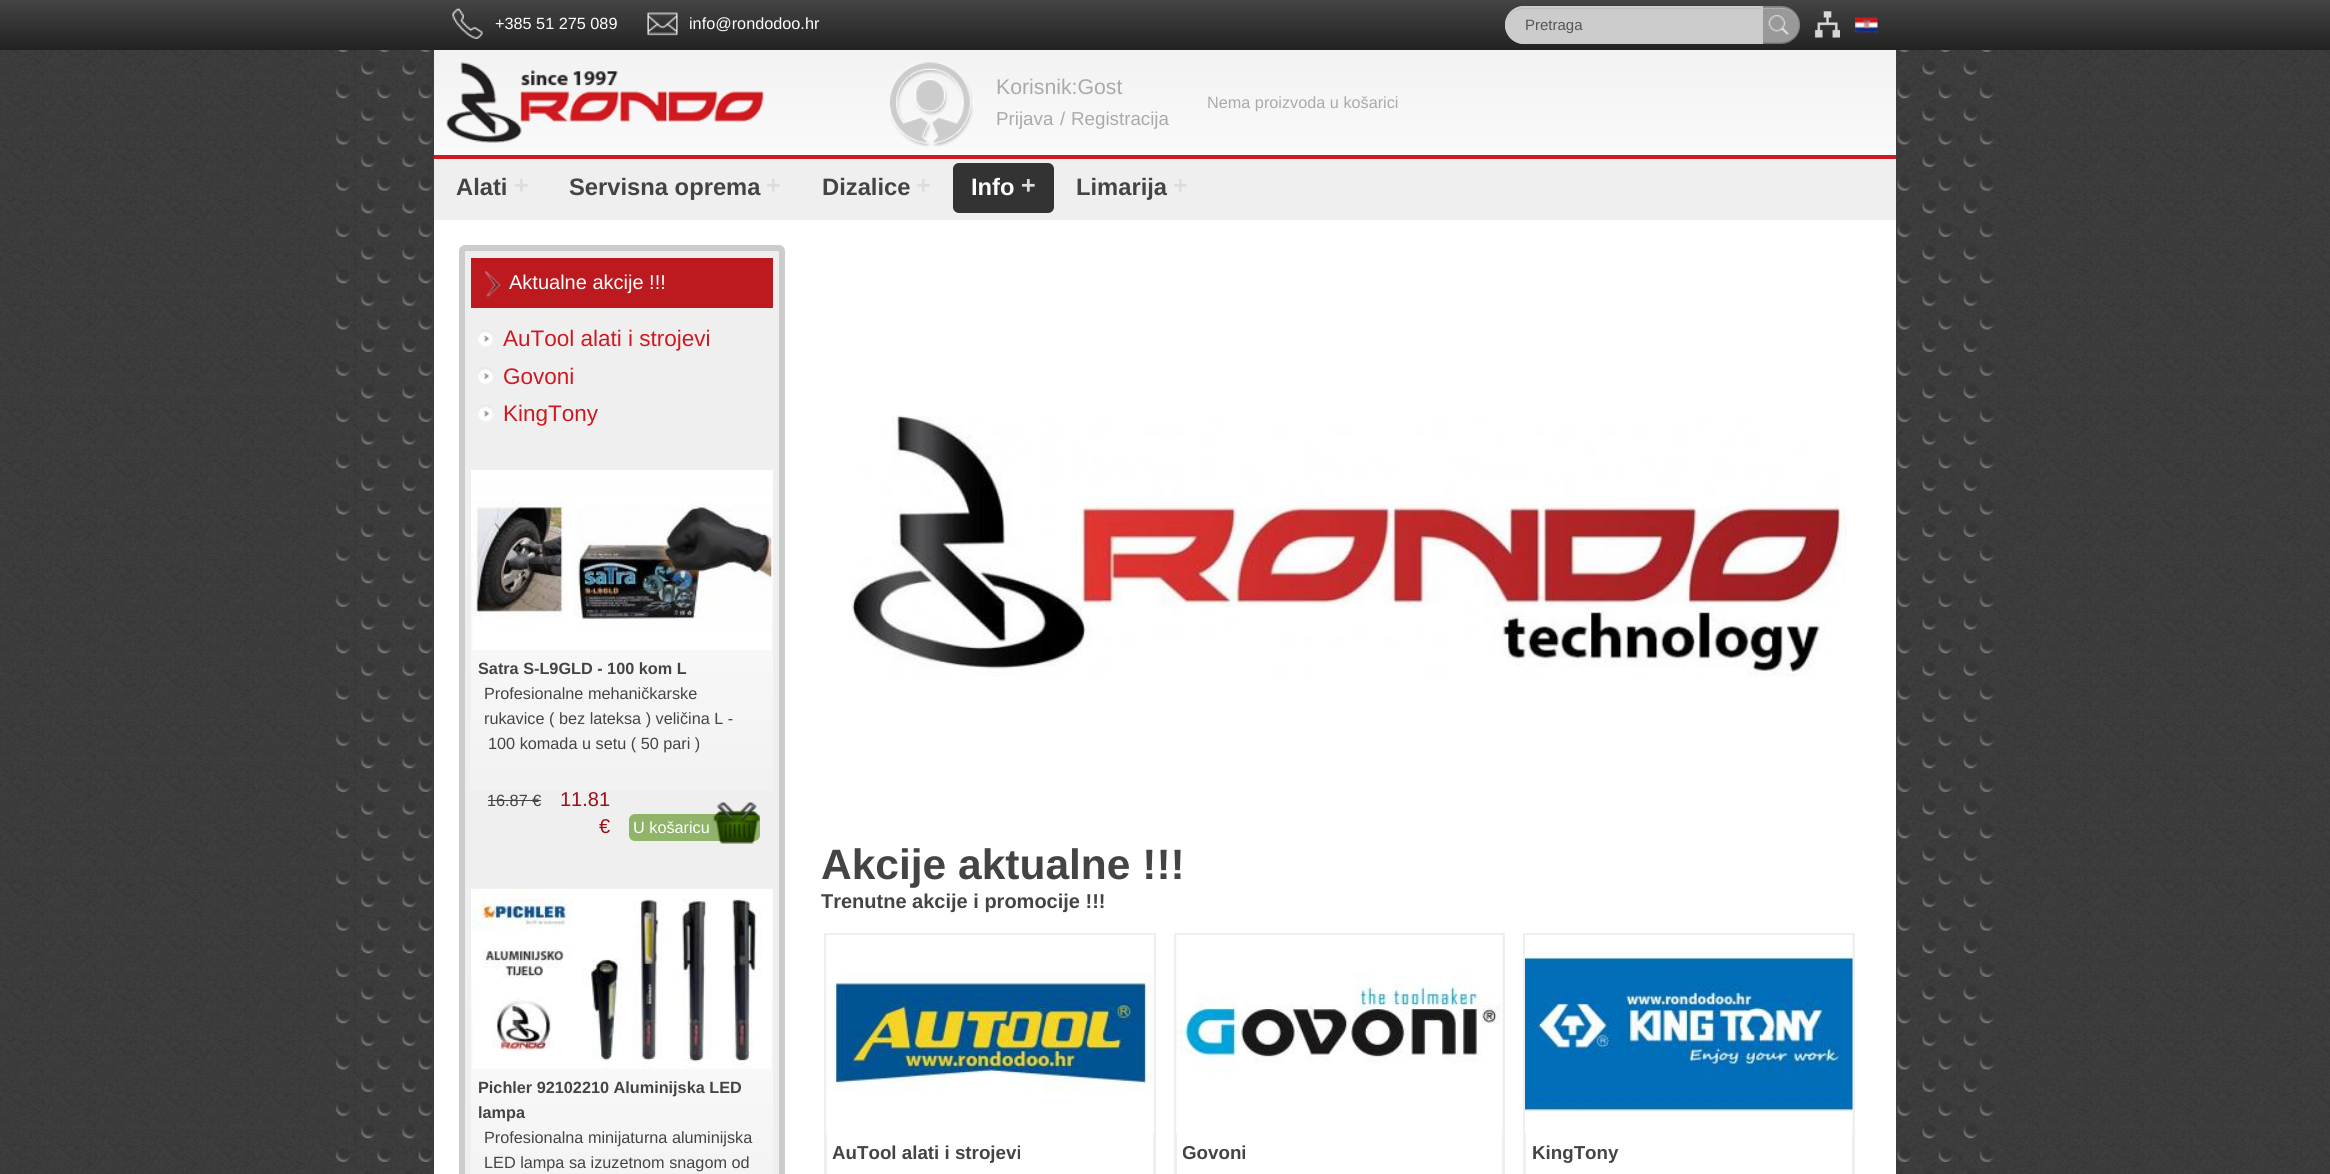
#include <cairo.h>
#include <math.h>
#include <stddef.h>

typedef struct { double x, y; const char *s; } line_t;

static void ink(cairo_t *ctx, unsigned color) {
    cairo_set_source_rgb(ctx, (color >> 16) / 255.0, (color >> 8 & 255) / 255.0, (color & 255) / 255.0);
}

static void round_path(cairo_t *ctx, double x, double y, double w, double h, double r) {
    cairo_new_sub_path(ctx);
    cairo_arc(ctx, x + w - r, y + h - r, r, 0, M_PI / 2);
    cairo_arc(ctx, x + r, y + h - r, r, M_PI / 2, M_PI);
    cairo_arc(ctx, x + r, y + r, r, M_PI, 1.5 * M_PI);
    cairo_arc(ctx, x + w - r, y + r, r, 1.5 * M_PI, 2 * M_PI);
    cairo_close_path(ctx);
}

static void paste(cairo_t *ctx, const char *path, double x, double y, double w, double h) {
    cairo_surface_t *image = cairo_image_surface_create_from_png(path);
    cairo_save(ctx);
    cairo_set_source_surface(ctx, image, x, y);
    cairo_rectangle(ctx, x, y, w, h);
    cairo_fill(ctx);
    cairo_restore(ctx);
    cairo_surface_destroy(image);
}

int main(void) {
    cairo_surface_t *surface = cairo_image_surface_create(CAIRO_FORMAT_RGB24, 2330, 1174);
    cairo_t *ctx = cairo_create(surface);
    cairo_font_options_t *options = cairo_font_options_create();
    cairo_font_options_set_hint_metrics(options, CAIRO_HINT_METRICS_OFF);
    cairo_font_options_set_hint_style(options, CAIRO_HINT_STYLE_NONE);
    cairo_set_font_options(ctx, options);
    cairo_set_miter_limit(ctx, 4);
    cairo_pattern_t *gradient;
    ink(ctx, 0xFFFFFF);
    cairo_paint(ctx);
    paste(ctx, "media/1.png", 0, 50, 2330, 1124);
    gradient = cairo_pattern_create_linear(1165, 0, 1165, 50);
    cairo_pattern_add_color_stop_rgba(gradient, 0, 0.267, 0.267, 0.267, 1);
    cairo_pattern_add_color_stop_rgba(gradient, 1, 0.133, 0.133, 0.133, 1);
    cairo_set_source(ctx, gradient);
    cairo_pattern_destroy(gradient);
    cairo_rectangle(ctx, 0, 0, 2330, 50);
    cairo_fill(ctx);
    paste(ctx, "media/2.png", 452, 8, 31, 31);
    cairo_select_font_face(ctx, "Liberation Sans", CAIRO_FONT_SLANT_NORMAL, CAIRO_FONT_WEIGHT_NORMAL);
    cairo_set_font_size(ctx, 16.25);
    ink(ctx, 0xFFFFFF);
    cairo_move_to(ctx, 495, 29);
    cairo_show_text(ctx, "+385 51 275 089");
    paste(ctx, "media/3.png", 647, 12, 31, 24);
    cairo_move_to(ctx, 689, 29);
    cairo_show_text(ctx, "info@rondodoo.hr");
    ink(ctx, 0x999999);
    cairo_new_path(ctx);
    cairo_move_to(ctx, 1761, 6);
    cairo_line_to(ctx, 1781, 6);
    cairo_curve_to(ctx, 1791.5, 6, 1800, 14.5, 1800, 25);
    cairo_curve_to(ctx, 1800, 35.5, 1791.5, 44, 1781, 44);
    cairo_line_to(ctx, 1761, 44);
    cairo_close_path(ctx);
    cairo_fill(ctx);
    paste(ctx, "media/4.png", 1768, 15, 21, 20);
    ink(ctx, 0xADADAD);
    cairo_new_path(ctx);
    cairo_move_to(ctx, 1763, 8);
    cairo_line_to(ctx, 1763, 9);
    cairo_line_to(ctx, 1781, 9);
    cairo_curve_to(ctx, 1791, 9, 1799, 17, 1799, 26);
    cairo_curve_to(ctx, 1799, 16, 1791, 8, 1781.5, 8);
    cairo_close_path(ctx);
    cairo_fill(ctx);
    cairo_set_source_rgba(ctx, 0, 0, 0, 0.15);
    cairo_new_path(ctx);
    cairo_move_to(ctx, 1762.5, 7.5);
    cairo_line_to(ctx, 1761, 6);
    cairo_line_to(ctx, 1784, 6);
    cairo_curve_to(ctx, 1788, 7, 1792, 9, 1794.5, 11.5);
    cairo_line_to(ctx, 1793.5, 12.5);
    cairo_curve_to(ctx, 1790.5, 9.5, 1786, 7.5, 1781, 7.5);
    cairo_close_path(ctx);
    cairo_fill(ctx);
    cairo_new_path(ctx);
    cairo_move_to(ctx, 1794.5, 11.5);
    cairo_curve_to(ctx, 1801.5, 19, 1801.5, 31, 1794.5, 38.5);
    cairo_line_to(ctx, 1793.5, 37.5);
    cairo_curve_to(ctx, 1800.5, 30.5, 1800.5, 19.5, 1793.5, 12.5);
    cairo_close_path(ctx);
    cairo_fill(ctx);
    cairo_set_source_rgba(ctx, 0, 0, 0, 0.25);
    cairo_new_path(ctx);
    cairo_move_to(ctx, 1794.5, 38.5);
    cairo_curve_to(ctx, 1792, 41, 1788, 43, 1784, 44);
    cairo_line_to(ctx, 1761, 44);
    cairo_line_to(ctx, 1762.5, 42.5);
    cairo_line_to(ctx, 1781, 42.5);
    cairo_curve_to(ctx, 1786, 42.5, 1790.5, 40.5, 1793.5, 37.5);
    cairo_close_path(ctx);
    cairo_fill(ctx);
    ink(ctx, 0xCCCCCC);
    cairo_new_path(ctx);
    cairo_move_to(ctx, 1524, 6);
    cairo_line_to(ctx, 1763, 6);
    cairo_line_to(ctx, 1763, 44);
    cairo_line_to(ctx, 1524, 44);
    cairo_curve_to(ctx, 1513.5, 44, 1505, 35.5, 1505, 25);
    cairo_curve_to(ctx, 1505, 14.5, 1513.5, 6, 1524, 6);
    cairo_close_path(ctx);
    cairo_fill(ctx);
    ink(ctx, 0xBDBDBD);
    cairo_new_path(ctx);
    cairo_move_to(ctx, 1524, 9);
    cairo_line_to(ctx, 1761, 9);
    cairo_line_to(ctx, 1761, 8);
    cairo_line_to(ctx, 1524, 8);
    cairo_curve_to(ctx, 1514, 8, 1506, 16, 1506, 26);
    cairo_curve_to(ctx, 1506, 17, 1514, 9, 1524, 9);
    cairo_close_path(ctx);
    cairo_fill(ctx);
    cairo_new_path(ctx);
    cairo_move_to(ctx, 1524, 6.5);
    cairo_line_to(ctx, 1762.5, 6.5);
    cairo_line_to(ctx, 1762.5, 43.5);
    cairo_line_to(ctx, 1524, 43.5);
    cairo_curve_to(ctx, 1514, 43.5, 1505.5, 35, 1505.5, 25);
    cairo_curve_to(ctx, 1505.5, 15, 1514, 6.5, 1524, 6.5);
    cairo_close_path(ctx);
    ink(ctx, 0xCCCCCC);
    cairo_set_line_width(ctx, 1);
    cairo_stroke(ctx);
    cairo_set_font_size(ctx, 15);
    ink(ctx, 0x555555);
    cairo_move_to(ctx, 1525, 30);
    cairo_show_text(ctx, "Pretraga");
    paste(ctx, "media/5.png", 1814, 11, 26, 27);
    paste(ctx, "media/6.png", 1855, 17, 23, 16);
    gradient = cairo_pattern_create_linear(1165, 50, 1165, 220);
    cairo_pattern_add_color_stop_rgba(gradient, 0, 0.949, 0.949, 0.949, 1);
    cairo_pattern_add_color_stop_rgba(gradient, 1, 1, 1, 1, 1);
    cairo_set_source(ctx, gradient);
    cairo_pattern_destroy(gradient);
    cairo_rectangle(ctx, 434, 50, 1462, 105);
    cairo_fill(ctx);
    ink(ctx, 0xCE1A20);
    cairo_rectangle(ctx, 434, 155, 1462, 4);
    cairo_fill(ctx);
    paste(ctx, "media/7.png", 446, 62, 318, 81);
    paste(ctx, "media/8.png", 890, 62, 84, 85);
    cairo_set_font_size(ctx, 21.25);
    ink(ctx, 0xAAAAAA);
    cairo_move_to(ctx, 996, 94);
    cairo_show_text(ctx, "Korisnik:Gost");
    cairo_set_font_size(ctx, 18.75);
    {
        static const line_t items[] = {
            {996, 125, "Prijava"},
            {1060, 125, "/"},
            {1071, 125, "Registracija"},
        };
        for (size_t i = 0; i < sizeof items / sizeof *items; i++) {
            cairo_move_to(ctx, items[i].x, items[i].y);
            cairo_show_text(ctx, items[i].s);
        }
    }
    cairo_set_font_size(ctx, 16.25);
    cairo_move_to(ctx, 1207, 108);
    cairo_show_text(ctx, "Nema proizvoda u košarici");
    ink(ctx, 0xEFEFEF);
    cairo_rectangle(ctx, 434, 159, 1462, 61);
    cairo_fill(ctx);
    cairo_select_font_face(ctx, "Liberation Sans", CAIRO_FONT_SLANT_NORMAL, CAIRO_FONT_WEIGHT_BOLD);
    cairo_set_font_size(ctx, 23.75);
    ink(ctx, 0x444444);
    cairo_move_to(ctx, 456, 195);
    cairo_show_text(ctx, "Alati");
    cairo_set_font_size(ctx, 25);
    ink(ctx, 0xDDDDDD);
    cairo_save(ctx);
    cairo_translate(ctx, 513, 178);
    cairo_rotate(ctx, 90 * M_PI / 180);
    cairo_move_to(ctx, 0, 0);
    cairo_show_text(ctx, "+");
    cairo_restore(ctx);
    cairo_set_font_size(ctx, 23.75);
    ink(ctx, 0x444444);
    cairo_move_to(ctx, 569, 195);
    cairo_show_text(ctx, "Servisna oprema");
    cairo_set_font_size(ctx, 25);
    ink(ctx, 0xDDDDDD);
    cairo_save(ctx);
    cairo_translate(ctx, 765, 178);
    cairo_rotate(ctx, 90 * M_PI / 180);
    cairo_move_to(ctx, 0, 0);
    cairo_show_text(ctx, "+");
    cairo_restore(ctx);
    cairo_set_font_size(ctx, 23.75);
    ink(ctx, 0x444444);
    cairo_move_to(ctx, 822, 195);
    cairo_show_text(ctx, "Dizalice");
    cairo_set_font_size(ctx, 25);
    ink(ctx, 0xDDDDDD);
    cairo_save(ctx);
    cairo_translate(ctx, 915, 178);
    cairo_rotate(ctx, 90 * M_PI / 180);
    cairo_move_to(ctx, 0, 0);
    cairo_show_text(ctx, "+");
    cairo_restore(ctx);
    ink(ctx, 0x333333);
    round_path(ctx, 953, 163, 101, 50, 6);
    cairo_fill(ctx);
    cairo_set_font_size(ctx, 23.75);
    ink(ctx, 0xFFFFFF);
    cairo_move_to(ctx, 971, 195);
    cairo_show_text(ctx, "Info");
    cairo_set_font_size(ctx, 25);
    ink(ctx, 0xDDDDDD);
    cairo_save(ctx);
    cairo_translate(ctx, 1020, 178);
    cairo_rotate(ctx, 90 * M_PI / 180);
    cairo_move_to(ctx, 0, 0);
    cairo_show_text(ctx, "+");
    cairo_restore(ctx);
    cairo_set_font_size(ctx, 23.75);
    ink(ctx, 0x444444);
    cairo_move_to(ctx, 1076, 195);
    cairo_show_text(ctx, "Limarija");
    cairo_set_font_size(ctx, 25);
    ink(ctx, 0xDDDDDD);
    cairo_save(ctx);
    cairo_translate(ctx, 1172, 178);
    cairo_rotate(ctx, 90 * M_PI / 180);
    cairo_move_to(ctx, 0, 0);
    cairo_show_text(ctx, "+");
    cairo_restore(ctx);
    ink(ctx, 0xFFFFFF);
    cairo_rectangle(ctx, 434, 220, 1462, 954);
    cairo_fill(ctx);
    ink(ctx, 0xEFEFEF);
    round_path(ctx, 462, 248, 320, 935, 3);
    cairo_fill_preserve(ctx);
    ink(ctx, 0xCCCCCC);
    cairo_set_line_width(ctx, 6);
    cairo_stroke(ctx);
    ink(ctx, 0xBD1A1F);
    cairo_rectangle(ctx, 471, 258, 302, 50);
    cairo_fill(ctx);
    paste(ctx, "media/9.png", 485, 271, 16, 26);
    cairo_select_font_face(ctx, "Liberation Sans", CAIRO_FONT_SLANT_NORMAL, CAIRO_FONT_WEIGHT_NORMAL);
    cairo_set_font_size(ctx, 20);
    ink(ctx, 0xFFFFFF);
    cairo_move_to(ctx, 509, 289);
    cairo_show_text(ctx, "Aktualne akcije !!!");
    paste(ctx, "media/10.png", 478, 330, 16, 17);
    cairo_set_font_size(ctx, 22.5);
    ink(ctx, 0xCE1920);
    cairo_move_to(ctx, 503, 346);
    cairo_show_text(ctx, "AuTool alati i strojevi");
    paste(ctx, "media/11.png", 478, 367, 16, 17);
    cairo_move_to(ctx, 503, 384);
    cairo_show_text(ctx, "Govoni");
    paste(ctx, "media/10.png", 478, 405, 16, 17);
    cairo_move_to(ctx, 503, 421);
    cairo_show_text(ctx, "KingTony");
    gradient = cairo_pattern_create_linear(622, 470, 622, 851);
    cairo_pattern_add_color_stop_rgba(gradient, 0, 1, 1, 1, 1);
    cairo_pattern_add_color_stop_rgba(gradient, 1, 0.937, 0.937, 0.937, 1);
    cairo_set_source(ctx, gradient);
    cairo_pattern_destroy(gradient);
    cairo_rectangle(ctx, 471, 470, 302, 321);
    cairo_fill(ctx);
    paste(ctx, "media/12.png", 472, 494, 300, 156);
    cairo_select_font_face(ctx, "Liberation Sans", CAIRO_FONT_SLANT_NORMAL, CAIRO_FONT_WEIGHT_BOLD);
    cairo_set_font_size(ctx, 16.25);
    ink(ctx, 0x444444);
    cairo_move_to(ctx, 478, 674);
    cairo_show_text(ctx, "Satra S-L9GLD - 100 kom L");
    cairo_select_font_face(ctx, "Liberation Sans", CAIRO_FONT_SLANT_NORMAL, CAIRO_FONT_WEIGHT_NORMAL);
    {
        static const line_t items[] = {
            {484, 699, "Profesionalne mehaničkarske"},
            {484, 724, "rukavice ( bez lateksa ) veličina L -"},
            {488, 749, "100 komada u setu ( 50 pari )"},
            {487, 806, "16.87 €"},
        };
        for (size_t i = 0; i < sizeof items / sizeof *items; i++) {
            cairo_move_to(ctx, items[i].x, items[i].y);
            cairo_show_text(ctx, items[i].s);
        }
    }
    cairo_rectangle(ctx, 488, 800, 53, 1);
    cairo_fill(ctx);
    cairo_set_font_size(ctx, 20);
    ink(ctx, 0x9C1016);
    cairo_move_to(ctx, 560, 806);
    cairo_show_text(ctx, "11.81");
    cairo_move_to(ctx, 599, 833);
    cairo_show_text(ctx, "€");
    ink(ctx, 0x91B46B);
    round_path(ctx, 629, 814, 131, 27, 6);
    cairo_fill(ctx);
    cairo_set_font_size(ctx, 16.25);
    ink(ctx, 0xFFFFFF);
    cairo_move_to(ctx, 633, 833);
    cairo_show_text(ctx, "U košaricu");
    paste(ctx, "media/13.png", 712, 802, 48, 42);
    gradient = cairo_pattern_create_linear(622, 889, 622, 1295);
    cairo_pattern_add_color_stop_rgba(gradient, 0, 1, 1, 1, 1);
    cairo_pattern_add_color_stop_rgba(gradient, 1, 0.937, 0.937, 0.937, 1);
    cairo_set_source(ctx, gradient);
    cairo_pattern_destroy(gradient);
    cairo_rectangle(ctx, 471, 889, 302, 285);
    cairo_fill(ctx);
    paste(ctx, "media/14.png", 472, 888, 299, 181);
    cairo_select_font_face(ctx, "Liberation Sans", CAIRO_FONT_SLANT_NORMAL, CAIRO_FONT_WEIGHT_BOLD);
    ink(ctx, 0x444444);
    cairo_move_to(ctx, 478, 1093);
    cairo_show_text(ctx, "Pichler 92102210 Aluminijska LED");
    cairo_move_to(ctx, 478, 1118);
    cairo_show_text(ctx, "lampa");
    cairo_select_font_face(ctx, "Liberation Sans", CAIRO_FONT_SLANT_NORMAL, CAIRO_FONT_WEIGHT_NORMAL);
    cairo_move_to(ctx, 484, 1143);
    cairo_show_text(ctx, "Profesionalna minijaturna aluminijska");
    cairo_move_to(ctx, 484, 1168);
    cairo_show_text(ctx, "LED lampa sa izuzetnom snagom od");
    paste(ctx, "media/15.png", 851, 415, 996, 262);
    cairo_select_font_face(ctx, "Liberation Sans", CAIRO_FONT_SLANT_NORMAL, CAIRO_FONT_WEIGHT_BOLD);
    cairo_set_font_size(ctx, 42.5);
    cairo_move_to(ctx, 821, 879);
    cairo_show_text(ctx, "Akcije aktualne !!!");
    cairo_set_font_size(ctx, 20);
    cairo_move_to(ctx, 821, 908);
    cairo_show_text(ctx, "Trenutne akcije i promocije !!!");
    cairo_rectangle(ctx, 825.5, 934.5, 329, 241);
    ink(ctx, 0xEFEFEF);
    cairo_set_line_width(ctx, 3);
    cairo_stroke(ctx);
    paste(ctx, "media/16.png", 826, 935, 328, 199);
    cairo_set_font_size(ctx, 18.75);
    ink(ctx, 0x444444);
    cairo_move_to(ctx, 832, 1159);
    cairo_show_text(ctx, "AuTool alati i strojevi");
    cairo_rectangle(ctx, 1175.5, 934.5, 328, 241);
    ink(ctx, 0xEFEFEF);
    cairo_stroke(ctx);
    paste(ctx, "media/17.png", 1176, 935, 327, 199);
    cairo_save(ctx);
    cairo_rectangle(ctx, 1183, 1140, 313, 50);
    cairo_clip(ctx);
    ink(ctx, 0x444444);
    cairo_move_to(ctx, 1182, 1159);
    cairo_show_text(ctx, "Govoni");
    cairo_restore(ctx);
    cairo_rectangle(ctx, 1524.5, 934.5, 329, 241);
    cairo_stroke(ctx);
    paste(ctx, "media/18.png", 1525, 935, 328, 199);
    ink(ctx, 0x444444);
    cairo_move_to(ctx, 1532, 1159);
    cairo_show_text(ctx, "KingTony");
    cairo_surface_write_to_png(surface, "image.png");
    cairo_font_options_destroy(options);
    cairo_destroy(ctx);
    cairo_surface_destroy(surface);
    return 0;
}
